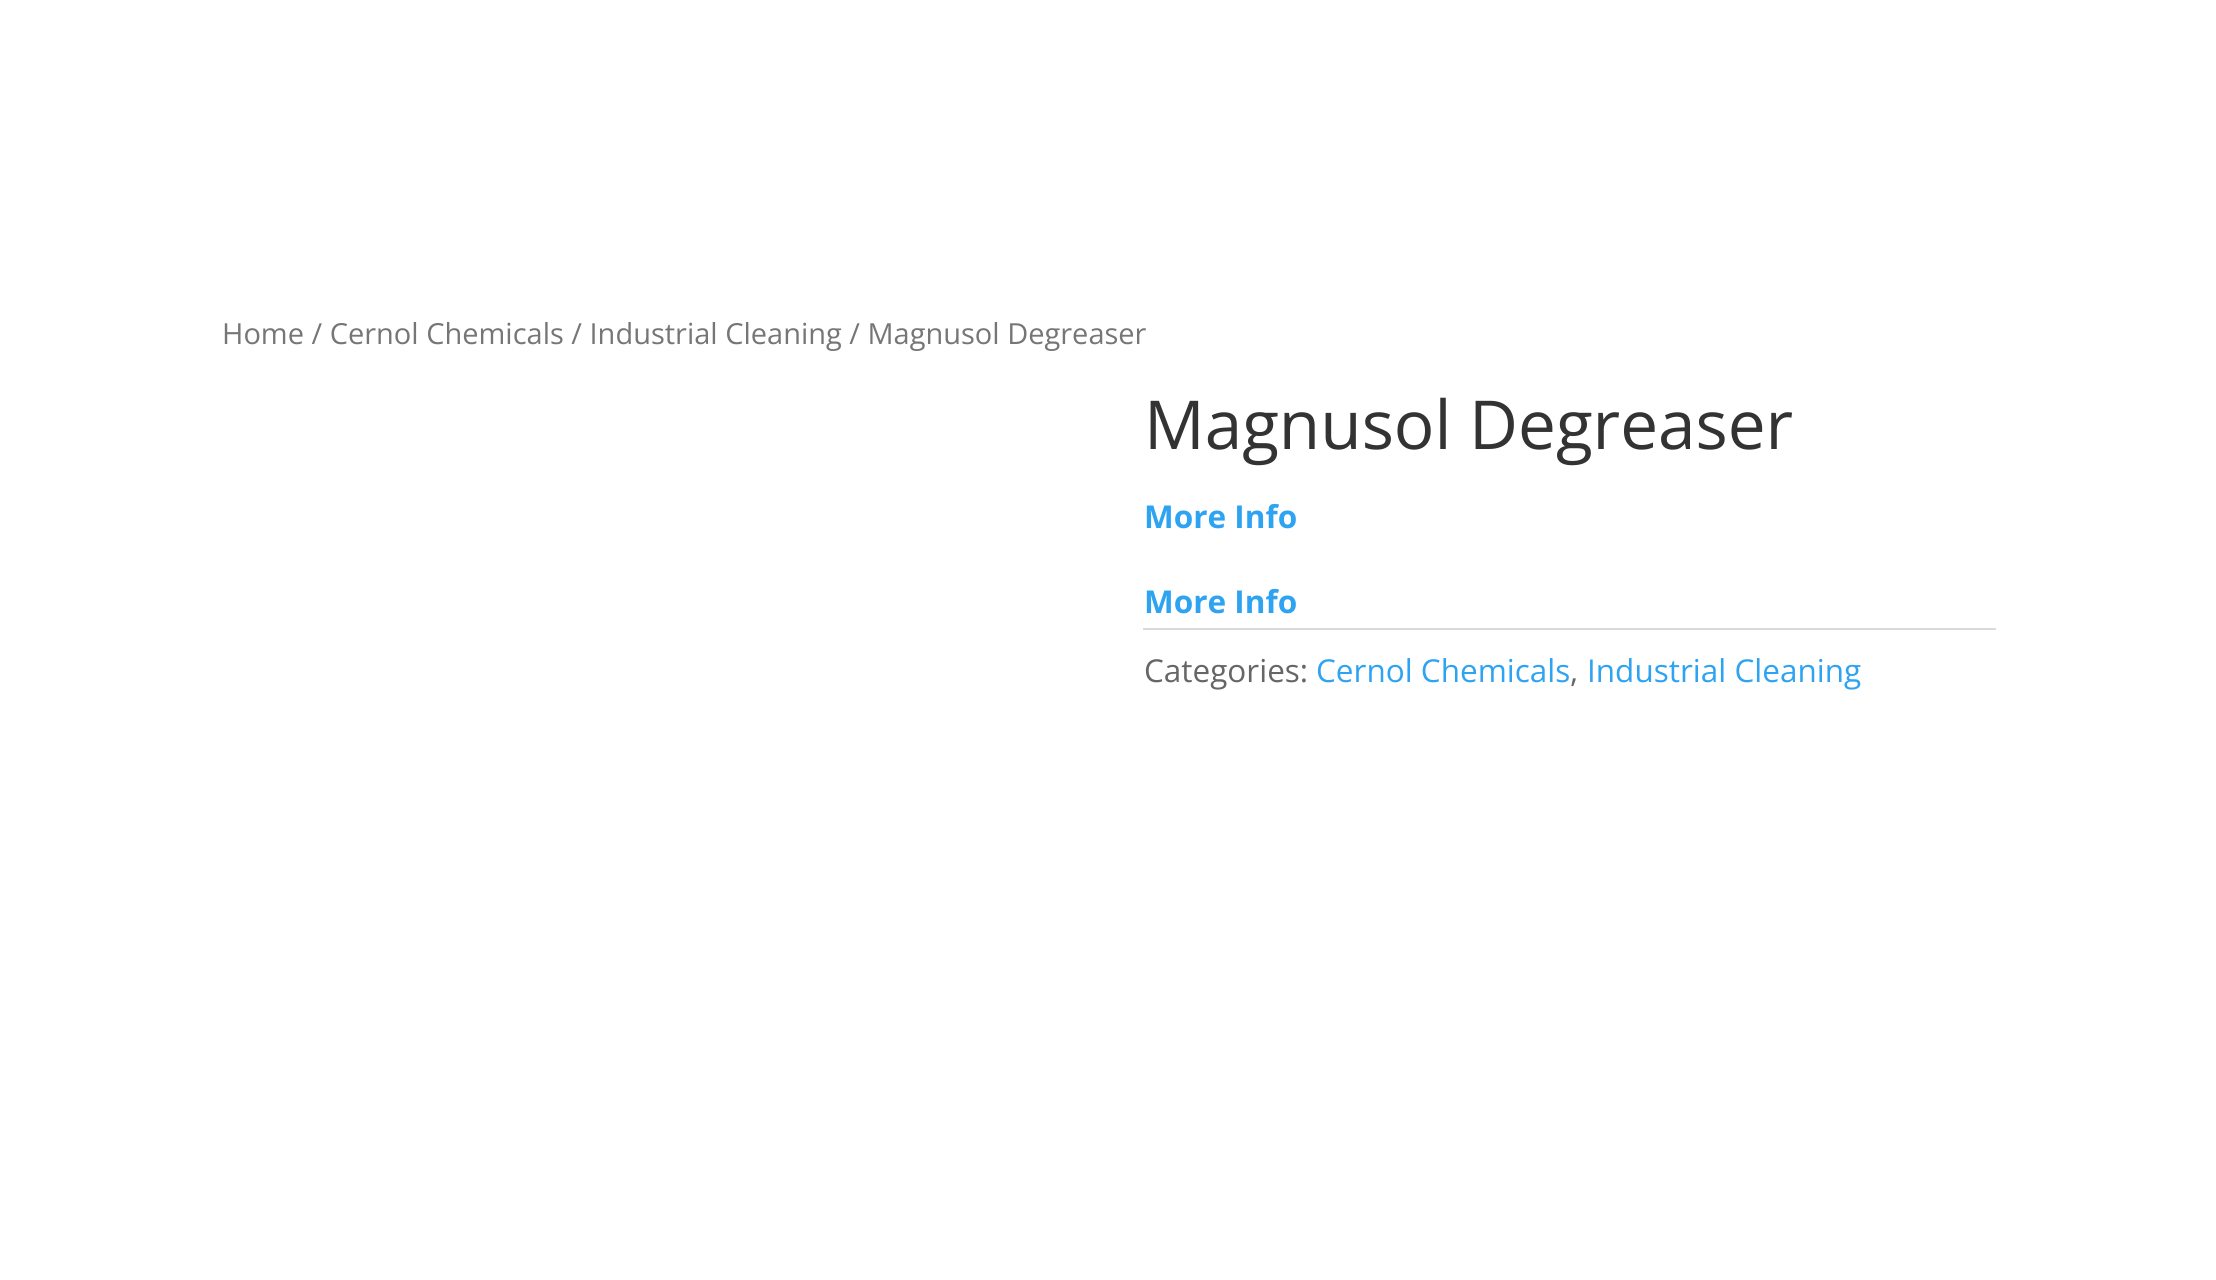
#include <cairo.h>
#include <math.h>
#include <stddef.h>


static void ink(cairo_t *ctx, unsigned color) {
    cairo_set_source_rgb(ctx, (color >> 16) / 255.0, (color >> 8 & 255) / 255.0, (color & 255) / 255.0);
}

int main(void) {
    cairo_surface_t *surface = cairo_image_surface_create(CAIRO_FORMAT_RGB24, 2216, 1280);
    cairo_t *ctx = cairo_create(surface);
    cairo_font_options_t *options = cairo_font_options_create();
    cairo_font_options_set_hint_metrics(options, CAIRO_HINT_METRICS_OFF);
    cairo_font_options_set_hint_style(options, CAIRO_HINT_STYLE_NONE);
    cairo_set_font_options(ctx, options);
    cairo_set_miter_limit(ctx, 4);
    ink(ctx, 0xFFFFFF);
    cairo_paint(ctx);
    cairo_select_font_face(ctx, "Open Sans", CAIRO_FONT_SLANT_NORMAL, CAIRO_FONT_WEIGHT_NORMAL);
    cairo_set_font_size(ctx, 29);
    ink(ctx, 0x767676);
    cairo_move_to(ctx, 222, 344);
    cairo_show_text(ctx, "Home / Cernol Chemicals / Industrial Cleaning / Magnusol Degreaser");
    cairo_set_font_size(ctx, 67.5);
    ink(ctx, 0x333333);
    cairo_move_to(ctx, 1144, 449);
    cairo_show_text(ctx, "Magnusol Degreaser");
    cairo_select_font_face(ctx, "Open Sans", CAIRO_FONT_SLANT_NORMAL, CAIRO_FONT_WEIGHT_BOLD);
    cairo_set_font_size(ctx, 31.5);
    ink(ctx, 0x2EA3F2);
    cairo_move_to(ctx, 1144, 528);
    cairo_show_text(ctx, "More Info");
    cairo_move_to(ctx, 1144, 613);
    cairo_show_text(ctx, "More Info");
    ink(ctx, 0xDADADA);
    cairo_rectangle(ctx, 1143, 628, 853, 2);
    cairo_fill(ctx);
    cairo_select_font_face(ctx, "Open Sans", CAIRO_FONT_SLANT_NORMAL, CAIRO_FONT_WEIGHT_NORMAL);
    ink(ctx, 0x666666);
    cairo_move_to(ctx, 1144, 682);
    cairo_show_text(ctx, "Categories:");
    ink(ctx, 0x2EA3F2);
    cairo_move_to(ctx, 1316, 682);
    cairo_show_text(ctx, "Cernol Chemicals");
    ink(ctx, 0x666666);
    cairo_move_to(ctx, 1570, 682);
    cairo_show_text(ctx, ",");
    ink(ctx, 0x2EA3F2);
    cairo_move_to(ctx, 1587, 682);
    cairo_show_text(ctx, "Industrial Cleaning");
    cairo_surface_write_to_png(surface, "image.png");
    cairo_font_options_destroy(options);
    cairo_destroy(ctx);
    cairo_surface_destroy(surface);
    return 0;
}
